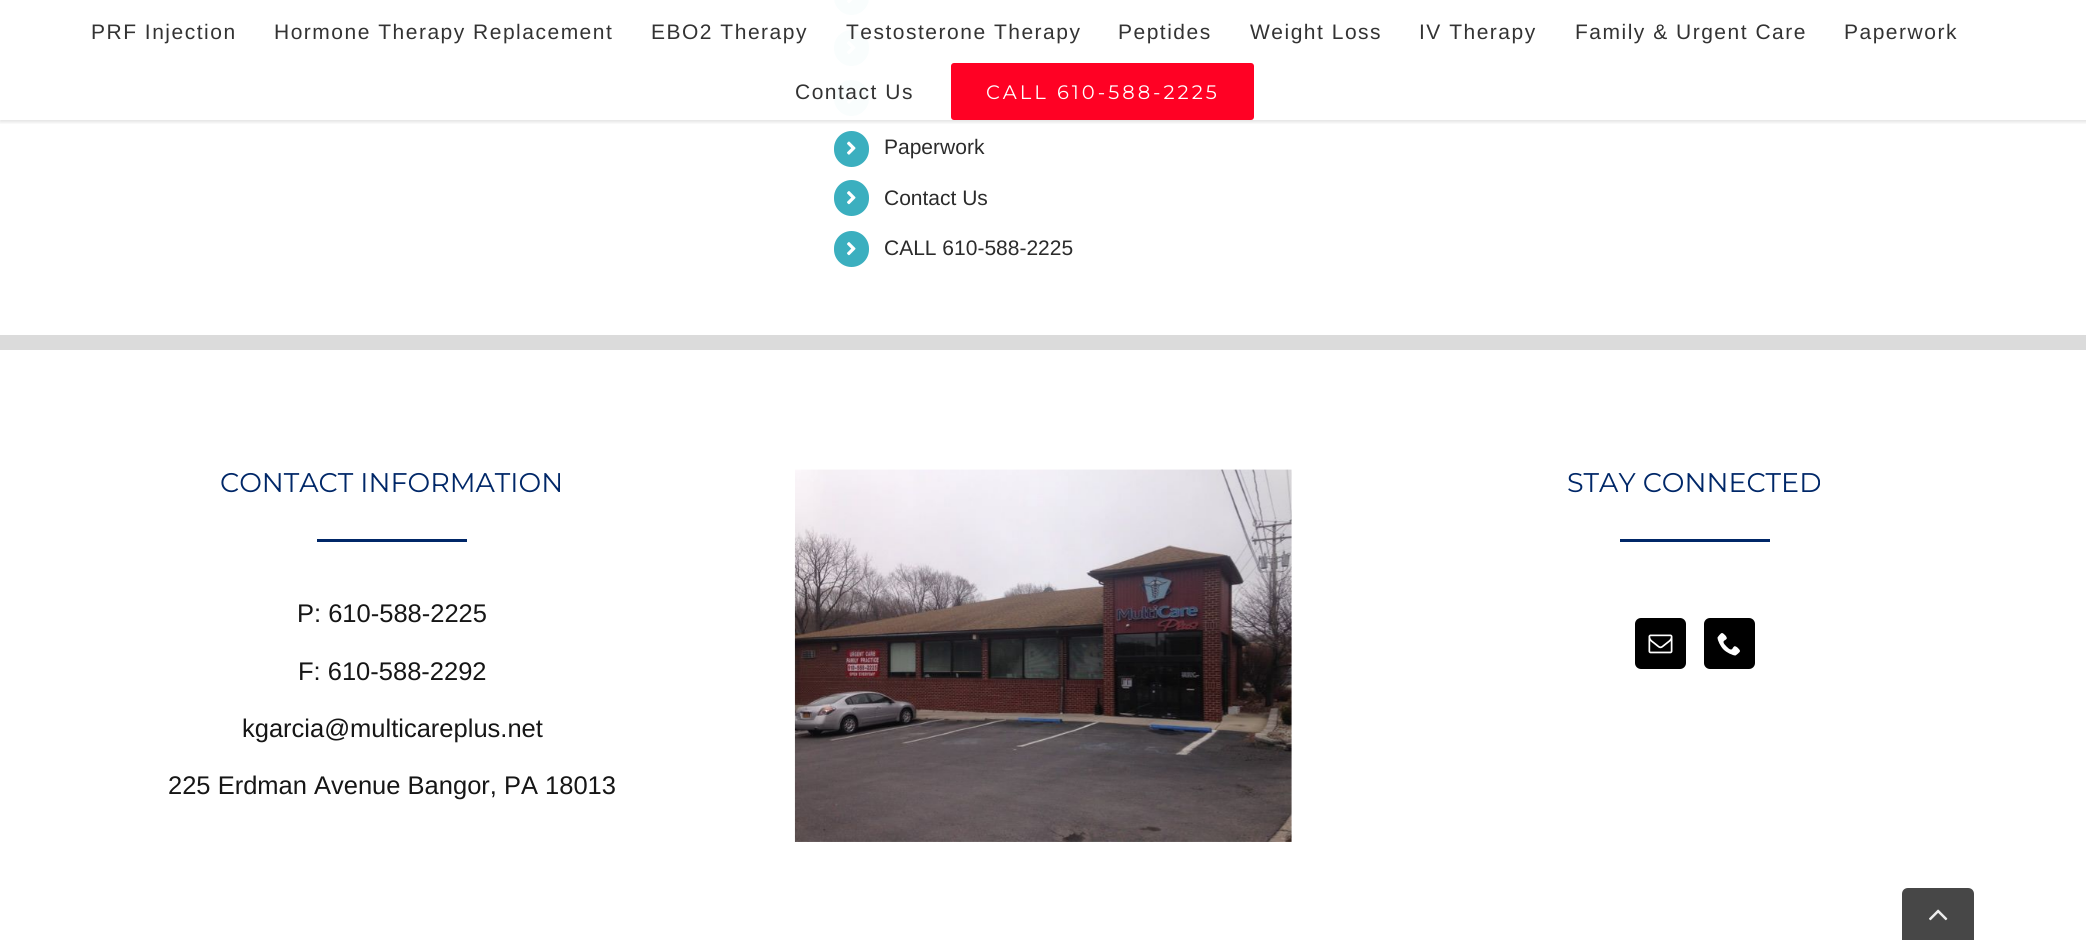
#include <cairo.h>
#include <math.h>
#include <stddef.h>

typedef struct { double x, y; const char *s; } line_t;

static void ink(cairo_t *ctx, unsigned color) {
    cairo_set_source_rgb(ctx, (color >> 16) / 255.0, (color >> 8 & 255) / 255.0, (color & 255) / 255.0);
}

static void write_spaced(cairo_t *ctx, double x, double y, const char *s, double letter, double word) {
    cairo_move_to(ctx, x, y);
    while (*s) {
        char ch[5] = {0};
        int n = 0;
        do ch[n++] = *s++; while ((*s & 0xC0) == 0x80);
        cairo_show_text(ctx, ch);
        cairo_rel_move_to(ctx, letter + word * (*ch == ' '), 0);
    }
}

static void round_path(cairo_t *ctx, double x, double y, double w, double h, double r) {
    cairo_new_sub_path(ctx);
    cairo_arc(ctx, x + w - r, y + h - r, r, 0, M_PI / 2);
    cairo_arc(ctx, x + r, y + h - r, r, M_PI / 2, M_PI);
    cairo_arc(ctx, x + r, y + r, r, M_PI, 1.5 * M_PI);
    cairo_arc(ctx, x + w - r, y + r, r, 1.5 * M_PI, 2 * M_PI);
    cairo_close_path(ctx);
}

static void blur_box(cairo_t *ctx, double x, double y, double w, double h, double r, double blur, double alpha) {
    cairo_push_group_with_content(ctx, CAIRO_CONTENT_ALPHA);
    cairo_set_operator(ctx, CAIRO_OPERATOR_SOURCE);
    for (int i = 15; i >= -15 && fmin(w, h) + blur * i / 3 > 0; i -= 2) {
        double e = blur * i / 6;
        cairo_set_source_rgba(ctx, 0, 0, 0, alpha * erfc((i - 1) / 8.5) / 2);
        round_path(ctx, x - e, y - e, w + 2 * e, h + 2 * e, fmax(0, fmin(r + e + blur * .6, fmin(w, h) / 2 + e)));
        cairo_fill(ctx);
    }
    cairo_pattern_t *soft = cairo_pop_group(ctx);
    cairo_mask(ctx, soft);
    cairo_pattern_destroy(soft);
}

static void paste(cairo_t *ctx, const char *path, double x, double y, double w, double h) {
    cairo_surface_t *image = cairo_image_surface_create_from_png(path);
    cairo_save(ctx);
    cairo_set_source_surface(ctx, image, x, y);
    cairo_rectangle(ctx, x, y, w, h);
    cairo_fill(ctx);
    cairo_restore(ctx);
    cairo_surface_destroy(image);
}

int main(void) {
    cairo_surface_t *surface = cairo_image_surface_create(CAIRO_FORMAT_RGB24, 2086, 940);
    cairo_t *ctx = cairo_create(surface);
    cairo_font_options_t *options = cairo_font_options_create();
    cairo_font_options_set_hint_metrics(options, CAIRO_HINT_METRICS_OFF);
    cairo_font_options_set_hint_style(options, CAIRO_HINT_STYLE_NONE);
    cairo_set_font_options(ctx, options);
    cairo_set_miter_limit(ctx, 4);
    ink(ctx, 0xFFFFFF);
    cairo_paint(ctx);
    ink(ctx, 0xF9FDFD);
    round_path(ctx, 834, -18, 35, 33, 17.5);
    cairo_fill(ctx);
    paste(ctx, "media/1.png", 847, 0, 6, 4);
    round_path(ctx, 834, 30, 35, 36, 17.5);
    cairo_fill(ctx);
    paste(ctx, "media/2.png", 847, 41, 9, 14);
    round_path(ctx, 834, 80, 35, 36, 17.5);
    cairo_fill(ctx);
    paste(ctx, "media/3.png", 847, 90, 9, 14);
    cairo_save(ctx);
    cairo_rectangle(ctx, 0, 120, 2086, 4);
    cairo_clip(ctx);
    ink(ctx, 0x000000);
    blur_box(ctx, 0, 2, 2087, 120, 0, 2, 0.12);
    cairo_restore(ctx);
    cairo_select_font_face(ctx, "Liberation Sans", CAIRO_FONT_SLANT_NORMAL, CAIRO_FONT_WEIGHT_NORMAL);
    cairo_set_font_size(ctx, 21);
    ink(ctx, 0x333333);
    {
        static const line_t items[] = {
            {91, 39, "PRF Injection"},
            {274, 39, "Hormone Therapy Replacement"},
            {651, 39, "EBO2 Therapy"},
            {846, 39, "Testosterone Therapy"},
            {1118, 39, "Peptides"},
            {1250, 39, "Weight Loss"},
            {1419, 39, "IV Therapy"},
            {1575, 39, "Family & Urgent Care"},
            {1844, 39, "Paperwork"},
            {795, 99, "Contact Us"},
        };
        for (size_t i = 0; i < sizeof items / sizeof *items; i++) {
            write_spaced(ctx, items[i].x, items[i].y, items[i].s, 1.5, 0);
        }
    }
    ink(ctx, 0xFF0124);
    round_path(ctx, 951, 63, 303, 57, 3);
    cairo_fill(ctx);
    cairo_select_font_face(ctx, "Montserrat Thin", CAIRO_FONT_SLANT_NORMAL, CAIRO_FONT_WEIGHT_NORMAL);
    cairo_set_font_size(ctx, 19.5);
    ink(ctx, 0xFFFFFF);
    write_spaced(ctx, 986, 99, "CALL 610-588-2225", 3, 0);
    ink(ctx, 0x3BAFBF);
    round_path(ctx, 834, 131, 35, 36, 17.5);
    cairo_fill(ctx);
    paste(ctx, "media/4.png", 847, 141, 9, 14);
    cairo_select_font_face(ctx, "Liberation Sans", CAIRO_FONT_SLANT_NORMAL, CAIRO_FONT_WEIGHT_NORMAL);
    cairo_set_font_size(ctx, 21);
    ink(ctx, 0x2B2B2B);
    cairo_move_to(ctx, 884, 154);
    cairo_show_text(ctx, "Paperwork");
    ink(ctx, 0x3BAFBF);
    round_path(ctx, 834, 180, 35, 36, 17.5);
    cairo_fill(ctx);
    paste(ctx, "media/5.png", 847, 191, 9, 14);
    ink(ctx, 0x2B2B2B);
    cairo_move_to(ctx, 884, 205);
    cairo_show_text(ctx, "Contact Us");
    ink(ctx, 0x3BAFBF);
    round_path(ctx, 834, 231, 35, 36, 17.5);
    cairo_fill(ctx);
    paste(ctx, "media/5.png", 847, 242, 9, 14);
    ink(ctx, 0x2B2B2B);
    cairo_move_to(ctx, 884, 255);
    cairo_show_text(ctx, "CALL 610-588-2225");
    ink(ctx, 0xDBDBDB);
    cairo_rectangle(ctx, 0, 335, 2086, 15);
    cairo_fill(ctx);
    cairo_select_font_face(ctx, "Montserrat Thin", CAIRO_FONT_SLANT_NORMAL, CAIRO_FONT_WEIGHT_NORMAL);
    cairo_set_font_size(ctx, 27);
    ink(ctx, 0x002768);
    cairo_move_to(ctx, 220, 492);
    cairo_show_text(ctx, "CONTACT INFORMATION");
    cairo_rectangle(ctx, 317, 539, 150, 3);
    cairo_fill(ctx);
    cairo_select_font_face(ctx, "Liberation Sans", CAIRO_FONT_SLANT_NORMAL, CAIRO_FONT_WEIGHT_NORMAL);
    cairo_set_font_size(ctx, 25.5);
    ink(ctx, 0x161616);
    {
        static const line_t items[] = {
            {297, 622, "P: 610-588-2225"},
            {298, 680, "F: 610-588-2292"},
            {242, 737, "kgarcia@multicareplus.net"},
            {168, 794, "225 Erdman Avenue Bangor, PA 18013"},
        };
        for (size_t i = 0; i < sizeof items / sizeof *items; i++) {
            cairo_move_to(ctx, items[i].x, items[i].y);
            cairo_show_text(ctx, items[i].s);
        }
    }
    paste(ctx, "media/6.png", 794, 469, 498, 373);
    cairo_select_font_face(ctx, "Montserrat Thin", CAIRO_FONT_SLANT_NORMAL, CAIRO_FONT_WEIGHT_NORMAL);
    cairo_set_font_size(ctx, 27);
    ink(ctx, 0x002768);
    cairo_move_to(ctx, 1567, 492);
    cairo_show_text(ctx, "STAY CONNECTED");
    cairo_rectangle(ctx, 1620, 539, 150, 3);
    cairo_fill(ctx);
    ink(ctx, 0x000000);
    round_path(ctx, 1636, 619, 49, 49, 5);
    cairo_fill_preserve(ctx);
    cairo_stroke(ctx);
    paste(ctx, "media/7.png", 1648, 634, 25, 20);
    round_path(ctx, 1705, 619, 49, 49, 5);
    cairo_fill_preserve(ctx);
    cairo_stroke(ctx);
    paste(ctx, "media/8.png", 1717, 633, 23, 23);
    ink(ctx, 0x474747);
    cairo_new_path(ctx);
    cairo_move_to(ctx, 1908, 888);
    cairo_line_to(ctx, 1968, 888);
    cairo_curve_to(ctx, 1971.5, 888, 1974, 890.5, 1974, 894);
    cairo_line_to(ctx, 1974, 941);
    cairo_line_to(ctx, 1902, 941);
    cairo_line_to(ctx, 1902, 894);
    cairo_curve_to(ctx, 1902, 890.5, 1904.5, 888, 1908, 888);
    cairo_close_path(ctx);
    cairo_fill(ctx);
    paste(ctx, "media/9.png", 1929, 909, 19, 12);
    cairo_surface_write_to_png(surface, "image.png");
    cairo_font_options_destroy(options);
    cairo_destroy(ctx);
    cairo_surface_destroy(surface);
    return 0;
}
